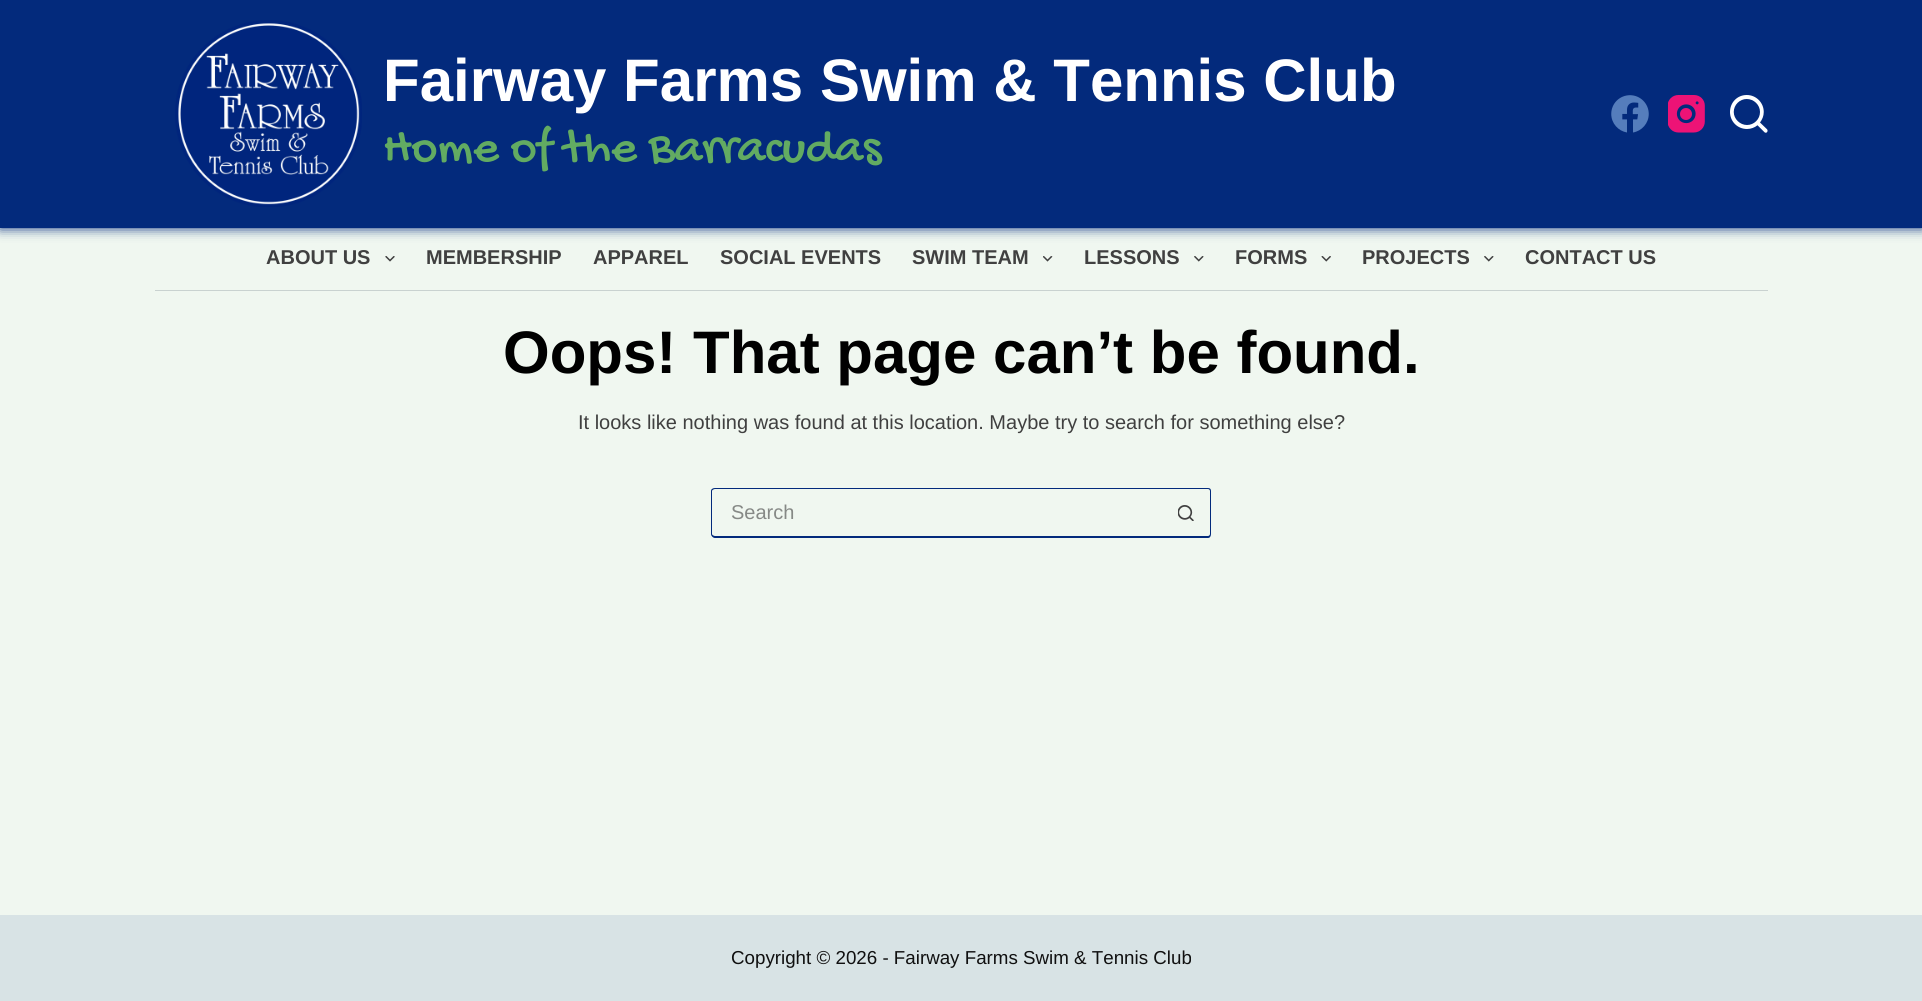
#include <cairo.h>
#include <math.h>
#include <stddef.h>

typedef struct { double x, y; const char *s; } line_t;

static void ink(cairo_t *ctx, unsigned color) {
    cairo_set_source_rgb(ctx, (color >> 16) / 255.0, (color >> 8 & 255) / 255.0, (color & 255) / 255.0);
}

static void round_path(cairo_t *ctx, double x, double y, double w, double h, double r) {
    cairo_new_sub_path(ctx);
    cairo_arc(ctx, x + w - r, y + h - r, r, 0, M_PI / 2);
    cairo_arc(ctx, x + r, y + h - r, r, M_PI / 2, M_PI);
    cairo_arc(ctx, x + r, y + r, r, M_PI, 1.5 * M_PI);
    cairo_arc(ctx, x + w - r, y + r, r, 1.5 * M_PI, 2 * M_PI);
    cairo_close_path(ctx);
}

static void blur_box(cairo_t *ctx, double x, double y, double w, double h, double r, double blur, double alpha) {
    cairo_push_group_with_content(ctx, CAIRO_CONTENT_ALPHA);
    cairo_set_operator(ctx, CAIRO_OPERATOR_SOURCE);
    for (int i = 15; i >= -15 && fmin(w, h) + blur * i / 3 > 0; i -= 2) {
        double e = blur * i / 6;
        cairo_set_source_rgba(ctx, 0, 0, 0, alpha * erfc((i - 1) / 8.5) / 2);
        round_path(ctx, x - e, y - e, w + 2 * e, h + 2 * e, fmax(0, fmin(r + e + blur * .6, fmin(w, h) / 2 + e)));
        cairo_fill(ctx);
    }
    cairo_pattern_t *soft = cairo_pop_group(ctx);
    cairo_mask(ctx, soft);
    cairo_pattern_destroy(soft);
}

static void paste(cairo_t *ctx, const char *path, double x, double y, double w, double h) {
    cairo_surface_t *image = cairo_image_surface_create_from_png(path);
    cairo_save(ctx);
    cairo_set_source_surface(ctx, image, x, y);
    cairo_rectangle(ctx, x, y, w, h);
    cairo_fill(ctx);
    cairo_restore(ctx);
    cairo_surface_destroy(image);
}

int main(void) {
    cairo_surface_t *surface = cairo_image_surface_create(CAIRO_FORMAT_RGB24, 1922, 1001);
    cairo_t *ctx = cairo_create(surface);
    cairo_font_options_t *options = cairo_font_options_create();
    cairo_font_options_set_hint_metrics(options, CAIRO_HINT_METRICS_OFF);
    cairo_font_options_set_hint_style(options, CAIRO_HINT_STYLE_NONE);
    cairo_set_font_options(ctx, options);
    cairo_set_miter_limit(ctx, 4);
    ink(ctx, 0xF0F7F0);
    cairo_paint(ctx);
    ink(ctx, 0x032A7C);
    blur_box(ctx, 0, 0, 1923, 228, 0, 6, 1);
    ink(ctx, 0x032A7C);
    cairo_rectangle(ctx, 0, 0, 1922, 228);
    cairo_fill(ctx);
    paste(ctx, "media/1.png", 175, 20, 187, 187);
    cairo_select_font_face(ctx, "Liberation Sans", CAIRO_FONT_SLANT_NORMAL, CAIRO_FONT_WEIGHT_BOLD);
    cairo_set_font_size(ctx, 60);
    ink(ctx, 0xFFFFFF);
    cairo_move_to(ctx, 383, 101);
    cairo_show_text(ctx, "Fairway Farms Swim & Tennis Club");
    cairo_select_font_face(ctx, "Gochi Hand", CAIRO_FONT_SLANT_NORMAL, CAIRO_FONT_WEIGHT_NORMAL);
    cairo_set_font_size(ctx, 50);
    ink(ctx, 0x62AB62);
    cairo_move_to(ctx, 383, 160);
    cairo_show_text(ctx, "Home of the Barracudas");
    paste(ctx, "media/2.png", 1611, 95, 38, 38);
    paste(ctx, "media/3.png", 1668, 95, 37, 38);
    paste(ctx, "media/4.png", 1730, 95, 38, 38);
    ink(ctx, 0xC9D2D0);
    cairo_rectangle(ctx, 155, 290, 1613, 1);
    cairo_fill(ctx);
    cairo_select_font_face(ctx, "Liberation Sans", CAIRO_FONT_SLANT_NORMAL, CAIRO_FONT_WEIGHT_BOLD);
    cairo_set_font_size(ctx, 20);
    ink(ctx, 0x404040);
    cairo_move_to(ctx, 266, 264);
    cairo_show_text(ctx, "ABOUT US");
    paste(ctx, "media/5.png", 385, 256, 10, 6);
    {
        static const line_t items[] = {
            {426, 264, "MEMBERSHIP"},
            {593, 264, "APPAREL"},
            {720, 264, "SOCIAL EVENTS"},
            {912, 264, "SWIM TEAM"},
        };
        for (size_t i = 0; i < sizeof items / sizeof *items; i++) {
            cairo_move_to(ctx, items[i].x, items[i].y);
            cairo_show_text(ctx, items[i].s);
        }
    }
    paste(ctx, "media/6.png", 1043, 256, 10, 6);
    cairo_move_to(ctx, 1084, 264);
    cairo_show_text(ctx, "LESSONS");
    paste(ctx, "media/7.png", 1194, 256, 10, 6);
    cairo_move_to(ctx, 1235, 264);
    cairo_show_text(ctx, "FORMS");
    paste(ctx, "media/8.png", 1321, 256, 10, 6);
    cairo_move_to(ctx, 1362, 264);
    cairo_show_text(ctx, "PROJECTS");
    paste(ctx, "media/7.png", 1484, 256, 10, 6);
    cairo_move_to(ctx, 1525, 264);
    cairo_show_text(ctx, "CONTACT US");
    cairo_set_font_size(ctx, 60);
    ink(ctx, 0x000000);
    cairo_move_to(ctx, 503, 373);
    cairo_show_text(ctx, "Oops! That page can’t be found.");
    cairo_select_font_face(ctx, "Liberation Sans", CAIRO_FONT_SLANT_NORMAL, CAIRO_FONT_WEIGHT_NORMAL);
    cairo_set_font_size(ctx, 20);
    ink(ctx, 0x404040);
    cairo_move_to(ctx, 578, 429);
    cairo_show_text(ctx, "It looks like nothing was found at this location. Maybe try to search for something else?");
    ink(ctx, 0x032A7C);
    cairo_set_fill_rule(ctx, CAIRO_FILL_RULE_EVEN_ODD);
    cairo_new_path(ctx);
    cairo_move_to(ctx, 715, 488);
    cairo_line_to(ctx, 1161, 488);
    cairo_line_to(ctx, 1161, 538);
    cairo_line_to(ctx, 715, 538);
    cairo_curve_to(ctx, 713, 538, 711, 536, 711, 534);
    cairo_line_to(ctx, 711, 491);
    cairo_curve_to(ctx, 711, 489, 713, 488, 715, 488);
    cairo_close_path(ctx);
    cairo_move_to(ctx, 715, 489);
    cairo_line_to(ctx, 1161, 489);
    cairo_line_to(ctx, 1161, 536);
    cairo_line_to(ctx, 715, 536);
    cairo_curve_to(ctx, 714, 536, 712, 535, 712, 534);
    cairo_line_to(ctx, 712, 491);
    cairo_curve_to(ctx, 712, 490, 714, 489, 715, 489);
    cairo_close_path(ctx);
    cairo_fill(ctx);
    ink(ctx, 0x868986);
    cairo_move_to(ctx, 731, 519);
    cairo_show_text(ctx, "Search");
    ink(ctx, 0x032A7C);
    cairo_new_path(ctx);
    cairo_move_to(ctx, 1161, 488);
    cairo_line_to(ctx, 1208, 488);
    cairo_curve_to(ctx, 1210, 488, 1211, 489, 1211, 491);
    cairo_line_to(ctx, 1211, 534);
    cairo_curve_to(ctx, 1211, 536, 1210, 538, 1208, 538);
    cairo_line_to(ctx, 1161, 538);
    cairo_close_path(ctx);
    cairo_move_to(ctx, 1161, 489);
    cairo_line_to(ctx, 1208, 489);
    cairo_curve_to(ctx, 1209, 489, 1210, 490, 1210, 491);
    cairo_line_to(ctx, 1210, 534);
    cairo_curve_to(ctx, 1210, 535, 1209, 536, 1208, 536);
    cairo_line_to(ctx, 1161, 536);
    cairo_close_path(ctx);
    cairo_fill(ctx);
    paste(ctx, "media/9.png", 1178, 505, 16, 16);
    ink(ctx, 0xD8E3E5);
    cairo_rectangle(ctx, 0, 915, 1922, 86);
    cairo_fill(ctx);
    cairo_set_font_size(ctx, 18.75);
    ink(ctx, 0x101010);
    cairo_move_to(ctx, 731, 964);
    cairo_show_text(ctx, "Copyright © 2026 - Fairway Farms Swim & Tennis Club");
    cairo_surface_write_to_png(surface, "image.png");
    cairo_font_options_destroy(options);
    cairo_destroy(ctx);
    cairo_surface_destroy(surface);
    return 0;
}
